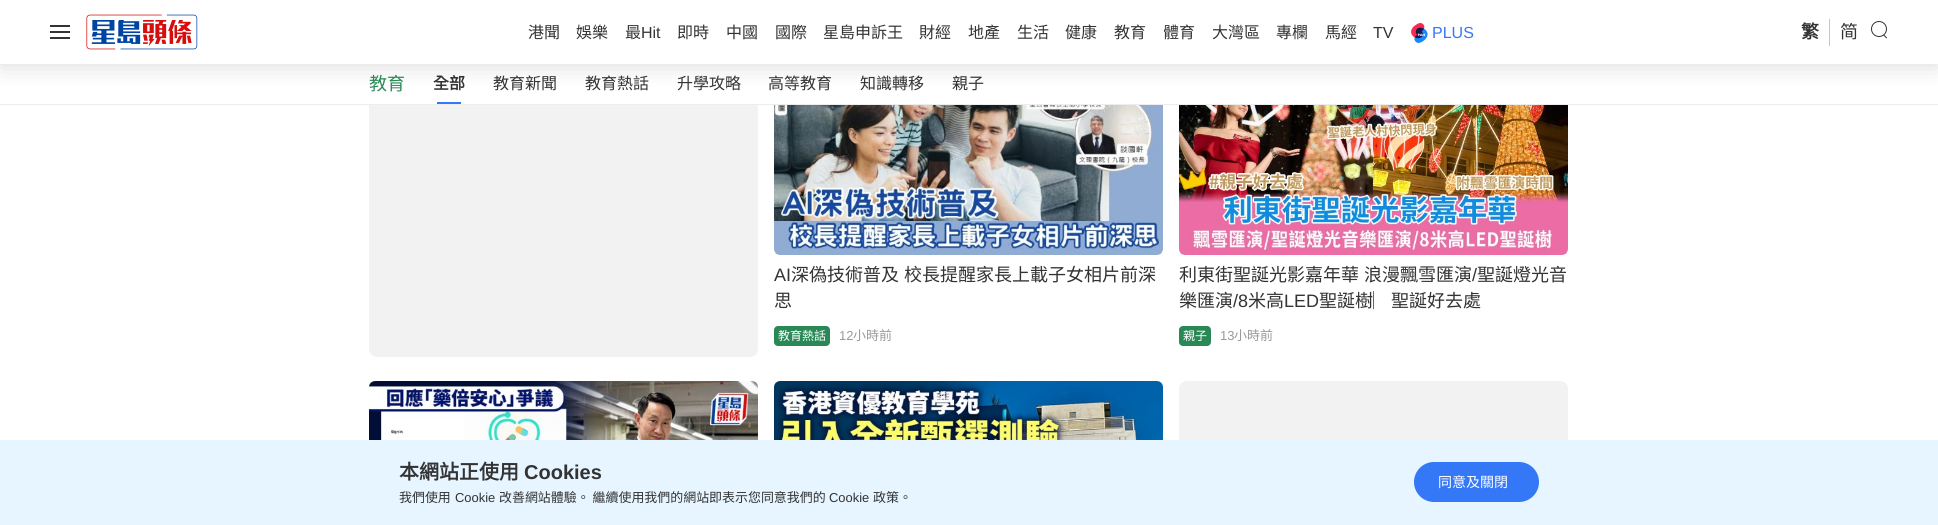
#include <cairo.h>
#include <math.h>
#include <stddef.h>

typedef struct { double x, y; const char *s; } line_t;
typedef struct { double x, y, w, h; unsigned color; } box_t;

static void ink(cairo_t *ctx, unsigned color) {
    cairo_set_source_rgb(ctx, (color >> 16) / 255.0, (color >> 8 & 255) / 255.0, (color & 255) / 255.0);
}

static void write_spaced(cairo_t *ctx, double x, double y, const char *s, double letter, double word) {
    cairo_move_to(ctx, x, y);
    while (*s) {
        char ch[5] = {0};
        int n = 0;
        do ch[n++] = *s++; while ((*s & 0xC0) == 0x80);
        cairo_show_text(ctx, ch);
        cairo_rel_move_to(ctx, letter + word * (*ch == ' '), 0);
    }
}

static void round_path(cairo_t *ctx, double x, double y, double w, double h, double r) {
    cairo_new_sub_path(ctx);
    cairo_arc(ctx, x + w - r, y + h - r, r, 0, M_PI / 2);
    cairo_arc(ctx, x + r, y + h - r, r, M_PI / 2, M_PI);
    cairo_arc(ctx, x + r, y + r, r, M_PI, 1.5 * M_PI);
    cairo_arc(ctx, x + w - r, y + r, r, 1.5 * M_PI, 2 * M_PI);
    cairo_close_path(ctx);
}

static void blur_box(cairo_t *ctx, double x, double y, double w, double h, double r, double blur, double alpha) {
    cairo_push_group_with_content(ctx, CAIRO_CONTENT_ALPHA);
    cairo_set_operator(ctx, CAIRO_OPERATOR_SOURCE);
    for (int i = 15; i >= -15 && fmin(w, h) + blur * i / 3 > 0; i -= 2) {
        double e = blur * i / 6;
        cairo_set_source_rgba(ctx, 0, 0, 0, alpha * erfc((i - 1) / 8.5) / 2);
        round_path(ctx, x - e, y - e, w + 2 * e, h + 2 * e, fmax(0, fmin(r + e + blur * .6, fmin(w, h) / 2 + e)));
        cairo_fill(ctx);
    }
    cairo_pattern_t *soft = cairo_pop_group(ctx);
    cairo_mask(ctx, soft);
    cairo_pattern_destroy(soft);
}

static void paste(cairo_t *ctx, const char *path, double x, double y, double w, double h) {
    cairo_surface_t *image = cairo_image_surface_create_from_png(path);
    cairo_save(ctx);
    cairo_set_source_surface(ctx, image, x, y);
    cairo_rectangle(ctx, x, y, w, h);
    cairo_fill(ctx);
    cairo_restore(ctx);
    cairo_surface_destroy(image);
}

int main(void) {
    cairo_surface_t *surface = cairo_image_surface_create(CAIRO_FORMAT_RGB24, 1938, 525);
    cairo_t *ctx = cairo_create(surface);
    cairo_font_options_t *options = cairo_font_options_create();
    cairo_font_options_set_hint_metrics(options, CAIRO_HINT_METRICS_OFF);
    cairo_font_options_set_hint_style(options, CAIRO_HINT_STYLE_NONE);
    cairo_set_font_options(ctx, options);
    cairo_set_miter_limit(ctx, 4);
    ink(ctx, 0xFFFFFF);
    cairo_paint(ctx);
    ink(ctx, 0xF2F2F2);
    round_path(ctx, 369, 35, 389, 322, 8);
    cairo_fill(ctx);
    ink(ctx, 0xFFFFFF);
    cairo_rectangle(ctx, 369, 64, 389, 40);
    cairo_fill(ctx);
    ink(ctx, 0x000000);
    blur_box(ctx, 0, 1, 1938, 64, 0, 12, 0.15);
    {
        static const box_t items[] = {
            {0, 0, 1938, 64, 0xFFFFFF},
            {50, 25, 20, 2, 0x333333},
            {50, 31, 20, 2, 0x333333},
            {50, 37, 20, 2, 0x333333},
        };
        for (size_t i = 0; i < sizeof items / sizeof *items; i++) {
            ink(ctx, items[i].color);
            cairo_rectangle(ctx, items[i].x, items[i].y, items[i].w, items[i].h);
            cairo_fill(ctx);
        }
    }
    paste(ctx, "media/1.png", 86, 14, 112, 36);
    cairo_select_font_face(ctx, "Noto Sans CJK HK", CAIRO_FONT_SLANT_NORMAL, CAIRO_FONT_WEIGHT_NORMAL);
    cairo_set_font_size(ctx, 16);
    {
        static const line_t items[] = {
            {528, 38, "港聞"},
            {576, 38, "娛樂"},
            {625, 38, "最"},
        };
        for (size_t i = 0; i < sizeof items / sizeof *items; i++) {
            cairo_move_to(ctx, items[i].x, items[i].y);
            cairo_show_text(ctx, items[i].s);
        }
    }
    cairo_select_font_face(ctx, "Liberation Sans", CAIRO_FONT_SLANT_NORMAL, CAIRO_FONT_WEIGHT_NORMAL);
    cairo_move_to(ctx, 641, 38);
    cairo_show_text(ctx, "Hit");
    cairo_select_font_face(ctx, "Noto Sans CJK HK", CAIRO_FONT_SLANT_NORMAL, CAIRO_FONT_WEIGHT_NORMAL);
    {
        static const line_t items[] = {
            {677, 38, "即時"},
            {726, 38, "中國"},
            {775, 38, "國際"},
            {823, 38, "星島申訴王"},
            {919, 38, "財經"},
            {968, 38, "地產"},
            {1017, 38, "生活"},
            {1065, 38, "健康"},
            {1114, 38, "教育"},
            {1163, 38, "體育"},
            {1212, 38, "大灣區"},
            {1276, 38, "專欄"},
            {1325, 38, "馬經"},
        };
        for (size_t i = 0; i < sizeof items / sizeof *items; i++) {
            cairo_move_to(ctx, items[i].x, items[i].y);
            cairo_show_text(ctx, items[i].s);
        }
    }
    cairo_select_font_face(ctx, "Liberation Sans", CAIRO_FONT_SLANT_NORMAL, CAIRO_FONT_WEIGHT_NORMAL);
    cairo_move_to(ctx, 1373, 38);
    cairo_show_text(ctx, "TV");
    paste(ctx, "media/2.png", 1411, 23, 17, 20);
    ink(ctx, 0x3478F7);
    cairo_move_to(ctx, 1432, 38);
    cairo_show_text(ctx, "PLUS");
    ink(ctx, 0xC7C7C7);
    cairo_rectangle(ctx, 1829, 19, 1, 27);
    cairo_fill(ctx);
    cairo_select_font_face(ctx, "Noto Sans CJK HK", CAIRO_FONT_SLANT_NORMAL, CAIRO_FONT_WEIGHT_BOLD);
    cairo_set_font_size(ctx, 18);
    ink(ctx, 0x333333);
    cairo_move_to(ctx, 1801, 38);
    cairo_show_text(ctx, "繁");
    cairo_select_font_face(ctx, "Noto Sans CJK HK", CAIRO_FONT_SLANT_NORMAL, CAIRO_FONT_WEIGHT_NORMAL);
    cairo_move_to(ctx, 1840, 38);
    cairo_show_text(ctx, "简");
    paste(ctx, "media/3.png", 1871, 21, 16, 18);
    ink(ctx, 0xEDEDED);
    cairo_rectangle(ctx, 0, 104, 1938, 1);
    cairo_fill(ctx);
    ink(ctx, 0x2A8856);
    cairo_move_to(ctx, 369, 90);
    cairo_show_text(ctx, "教育");
    cairo_select_font_face(ctx, "Noto Sans CJK HK", CAIRO_FONT_SLANT_NORMAL, CAIRO_FONT_WEIGHT_BOLD);
    cairo_set_font_size(ctx, 16);
    ink(ctx, 0x333333);
    cairo_move_to(ctx, 433, 89);
    cairo_show_text(ctx, "全部");
    ink(ctx, 0x3478F7);
    cairo_rectangle(ctx, 437, 102, 24, 2);
    cairo_fill(ctx);
    cairo_select_font_face(ctx, "Noto Sans CJK HK", CAIRO_FONT_SLANT_NORMAL, CAIRO_FONT_WEIGHT_NORMAL);
    ink(ctx, 0x333333);
    {
        static const line_t items[] = {
            {493, 89, "教育新聞"},
            {585, 89, "教育熱話"},
            {677, 89, "升學攻略"},
            {768, 89, "高等教育"},
            {860, 89, "知識轉移"},
            {952, 89, "親子"},
        };
        for (size_t i = 0; i < sizeof items / sizeof *items; i++) {
            cairo_move_to(ctx, items[i].x, items[i].y);
            cairo_show_text(ctx, items[i].s);
        }
    }
    paste(ctx, "media/4.png", 774, 105, 389, 150);
    cairo_select_font_face(ctx, "Liberation Sans", CAIRO_FONT_SLANT_NORMAL, CAIRO_FONT_WEIGHT_NORMAL);
    cairo_set_font_size(ctx, 18);
    cairo_move_to(ctx, 774, 281);
    cairo_show_text(ctx, "AI");
    cairo_select_font_face(ctx, "Noto Sans CJK HK", CAIRO_FONT_SLANT_NORMAL, CAIRO_FONT_WEIGHT_NORMAL);
    write_spaced(ctx, 791, 281, "深偽技術普及 校長提醒家長上載子女相片前深", 0, 1);
    cairo_move_to(ctx, 774, 307);
    cairo_show_text(ctx, "思");
    ink(ctx, 0x2A8856);
    round_path(ctx, 774, 326, 56, 20, 4);
    cairo_fill(ctx);
    cairo_set_font_size(ctx, 12);
    ink(ctx, 0xFFFFFF);
    cairo_move_to(ctx, 778, 340);
    cairo_show_text(ctx, "教育熱話");
    cairo_select_font_face(ctx, "Liberation Sans", CAIRO_FONT_SLANT_NORMAL, CAIRO_FONT_WEIGHT_NORMAL);
    cairo_set_font_size(ctx, 13);
    ink(ctx, 0x999999);
    cairo_move_to(ctx, 839, 340);
    cairo_show_text(ctx, "12");
    cairo_select_font_face(ctx, "Noto Sans CJK HK", CAIRO_FONT_SLANT_NORMAL, CAIRO_FONT_WEIGHT_NORMAL);
    cairo_move_to(ctx, 853, 340);
    cairo_show_text(ctx, "小時前");
    paste(ctx, "media/5.png", 1179, 105, 389, 150);
    cairo_set_font_size(ctx, 18);
    ink(ctx, 0x333333);
    write_spaced(ctx, 1179, 281, "利東街聖誕光影嘉年華 浪漫飄雪匯演", 0, 1);
    cairo_select_font_face(ctx, "Liberation Sans", CAIRO_FONT_SLANT_NORMAL, CAIRO_FONT_WEIGHT_NORMAL);
    cairo_move_to(ctx, 1472, 281);
    cairo_show_text(ctx, "/");
    cairo_select_font_face(ctx, "Noto Sans CJK HK", CAIRO_FONT_SLANT_NORMAL, CAIRO_FONT_WEIGHT_NORMAL);
    cairo_move_to(ctx, 1477, 281);
    cairo_show_text(ctx, "聖誕燈光音");
    cairo_move_to(ctx, 1179, 307);
    cairo_show_text(ctx, "樂匯演");
    cairo_select_font_face(ctx, "Liberation Sans", CAIRO_FONT_SLANT_NORMAL, CAIRO_FONT_WEIGHT_NORMAL);
    cairo_move_to(ctx, 1233, 307);
    cairo_show_text(ctx, "/8");
    cairo_select_font_face(ctx, "Noto Sans CJK HK", CAIRO_FONT_SLANT_NORMAL, CAIRO_FONT_WEIGHT_NORMAL);
    cairo_move_to(ctx, 1248, 307);
    cairo_show_text(ctx, "米高");
    cairo_select_font_face(ctx, "Liberation Sans", CAIRO_FONT_SLANT_NORMAL, CAIRO_FONT_WEIGHT_NORMAL);
    cairo_move_to(ctx, 1284, 307);
    cairo_show_text(ctx, "LED");
    cairo_select_font_face(ctx, "Noto Sans CJK HK", CAIRO_FONT_SLANT_NORMAL, CAIRO_FONT_WEIGHT_NORMAL);
    cairo_move_to(ctx, 1319, 307);
    cairo_show_text(ctx, "聖誕樹︳聖誕好去處");
    ink(ctx, 0x2A8856);
    round_path(ctx, 1179, 326, 32, 20, 4);
    cairo_fill(ctx);
    cairo_set_font_size(ctx, 12);
    ink(ctx, 0xFFFFFF);
    cairo_move_to(ctx, 1183, 340);
    cairo_show_text(ctx, "親子");
    cairo_select_font_face(ctx, "Liberation Sans", CAIRO_FONT_SLANT_NORMAL, CAIRO_FONT_WEIGHT_NORMAL);
    cairo_set_font_size(ctx, 13);
    ink(ctx, 0x999999);
    cairo_move_to(ctx, 1220, 340);
    cairo_show_text(ctx, "13");
    cairo_select_font_face(ctx, "Noto Sans CJK HK", CAIRO_FONT_SLANT_NORMAL, CAIRO_FONT_WEIGHT_NORMAL);
    cairo_move_to(ctx, 1234, 340);
    cairo_show_text(ctx, "小時前");
    paste(ctx, "media/6.png", 369, 381, 389, 59);
    paste(ctx, "media/7.png", 774, 381, 389, 59);
    ink(ctx, 0xF2F2F2);
    round_path(ctx, 1179, 381, 389, 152, 8);
    cairo_fill(ctx);
    ink(ctx, 0xE6F5FF);
    cairo_rectangle(ctx, 0, 440, 1938, 85);
    cairo_fill(ctx);
    cairo_select_font_face(ctx, "Noto Sans CJK HK", CAIRO_FONT_SLANT_NORMAL, CAIRO_FONT_WEIGHT_BOLD);
    cairo_set_font_size(ctx, 20);
    ink(ctx, 0x333333);
    cairo_move_to(ctx, 399, 479);
    cairo_show_text(ctx, "本網站正使用");
    cairo_select_font_face(ctx, "Liberation Sans", CAIRO_FONT_SLANT_NORMAL, CAIRO_FONT_WEIGHT_BOLD);
    cairo_move_to(ctx, 524, 479);
    cairo_show_text(ctx, "Cookies");
    cairo_select_font_face(ctx, "Noto Sans CJK HK", CAIRO_FONT_SLANT_NORMAL, CAIRO_FONT_WEIGHT_NORMAL);
    cairo_set_font_size(ctx, 12.95);
    cairo_move_to(ctx, 399, 502);
    cairo_show_text(ctx, "我們使用");
    cairo_select_font_face(ctx, "Liberation Sans", CAIRO_FONT_SLANT_NORMAL, CAIRO_FONT_WEIGHT_NORMAL);
    cairo_move_to(ctx, 455, 502);
    cairo_show_text(ctx, "Cookie");
    cairo_select_font_face(ctx, "Noto Sans CJK HK", CAIRO_FONT_SLANT_NORMAL, CAIRO_FONT_WEIGHT_NORMAL);
    cairo_move_to(ctx, 499, 502);
    cairo_show_text(ctx, "改善網站體驗。 繼續使用我們的網站即表示您同意我們的");
    cairo_select_font_face(ctx, "Liberation Sans", CAIRO_FONT_SLANT_NORMAL, CAIRO_FONT_WEIGHT_NORMAL);
    cairo_move_to(ctx, 829, 502);
    cairo_show_text(ctx, "Cookie");
    cairo_select_font_face(ctx, "Noto Sans CJK HK", CAIRO_FONT_SLANT_NORMAL, CAIRO_FONT_WEIGHT_NORMAL);
    cairo_move_to(ctx, 873, 502);
    cairo_show_text(ctx, "政策。");
    ink(ctx, 0x3478F7);
    round_path(ctx, 1414, 462, 125, 40, 20);
    cairo_fill(ctx);
    cairo_set_font_size(ctx, 14);
    ink(ctx, 0xFFFFFF);
    cairo_move_to(ctx, 1438, 487);
    cairo_show_text(ctx, "同意及關閉");
    cairo_surface_write_to_png(surface, "image.png");
    cairo_font_options_destroy(options);
    cairo_destroy(ctx);
    cairo_surface_destroy(surface);
    return 0;
}
